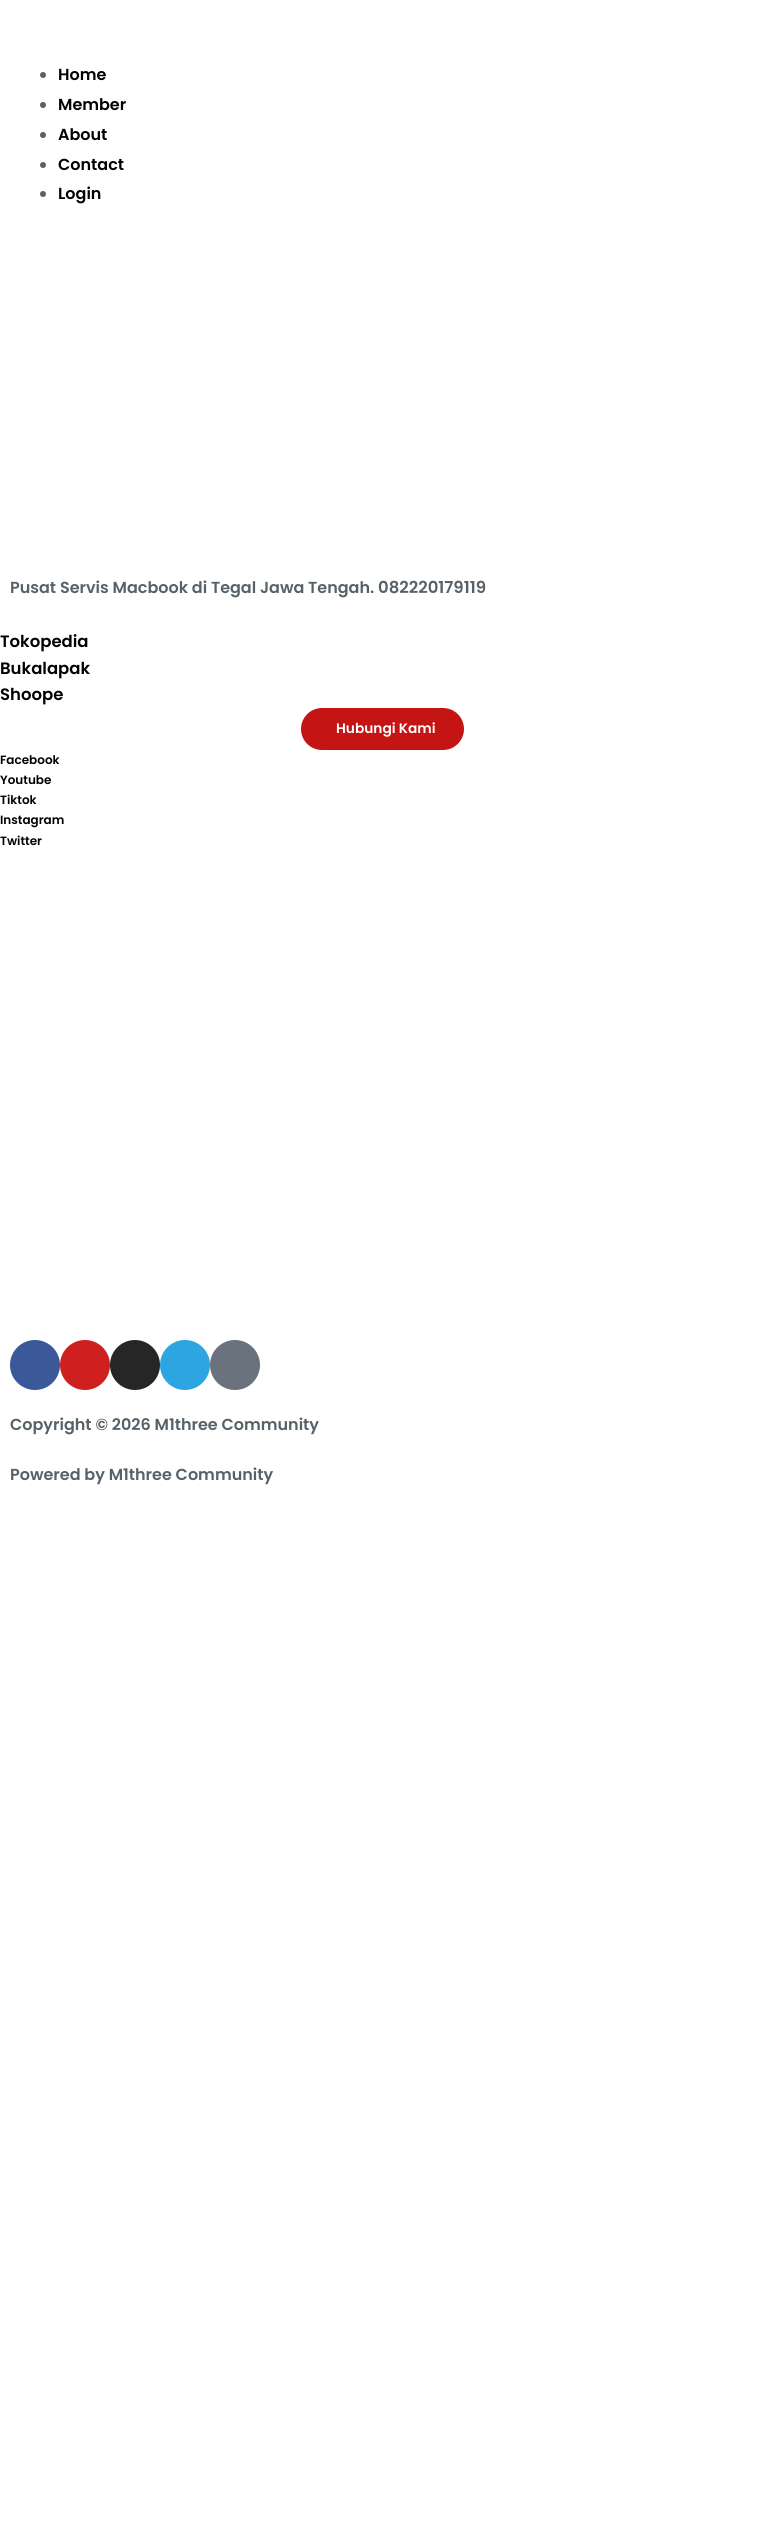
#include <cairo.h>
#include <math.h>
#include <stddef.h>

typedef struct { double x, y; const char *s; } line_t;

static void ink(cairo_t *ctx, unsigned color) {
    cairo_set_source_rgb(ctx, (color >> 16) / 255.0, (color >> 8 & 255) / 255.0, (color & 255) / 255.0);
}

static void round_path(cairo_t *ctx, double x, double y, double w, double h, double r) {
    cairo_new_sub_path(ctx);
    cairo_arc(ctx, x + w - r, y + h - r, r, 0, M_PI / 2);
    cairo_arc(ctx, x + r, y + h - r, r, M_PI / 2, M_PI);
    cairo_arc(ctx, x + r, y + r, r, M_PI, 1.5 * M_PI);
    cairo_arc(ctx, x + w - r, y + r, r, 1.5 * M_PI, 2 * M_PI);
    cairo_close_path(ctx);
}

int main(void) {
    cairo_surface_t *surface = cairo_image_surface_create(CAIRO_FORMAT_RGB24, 765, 2543);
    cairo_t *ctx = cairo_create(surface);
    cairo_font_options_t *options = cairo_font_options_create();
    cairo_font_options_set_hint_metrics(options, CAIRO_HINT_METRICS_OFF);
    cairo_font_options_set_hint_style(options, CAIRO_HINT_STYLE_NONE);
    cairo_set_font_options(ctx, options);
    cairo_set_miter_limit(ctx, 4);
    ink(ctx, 0xFFFFFF);
    cairo_paint(ctx);
    ink(ctx, 0x576168);
    cairo_arc(ctx, 43, 75, 3, 0, 2 * M_PI);
    cairo_fill(ctx);
    cairo_select_font_face(ctx, "Poppins SemiBold", CAIRO_FONT_SLANT_NORMAL, CAIRO_FONT_WEIGHT_NORMAL);
    cairo_set_font_size(ctx, 16);
    ink(ctx, 0x030000);
    cairo_move_to(ctx, 58, 80);
    cairo_show_text(ctx, "Home");
    ink(ctx, 0x576168);
    cairo_new_path(ctx);
    cairo_arc(ctx, 43, 105, 3, 0, 2 * M_PI);
    cairo_fill(ctx);
    ink(ctx, 0x030000);
    cairo_move_to(ctx, 58, 110);
    cairo_show_text(ctx, "Member");
    ink(ctx, 0x576168);
    cairo_new_path(ctx);
    cairo_arc(ctx, 43, 135, 3, 0, 2 * M_PI);
    cairo_fill(ctx);
    ink(ctx, 0x030000);
    cairo_move_to(ctx, 58, 140);
    cairo_show_text(ctx, "About");
    ink(ctx, 0x576168);
    cairo_new_path(ctx);
    cairo_arc(ctx, 43, 165, 3, 0, 2 * M_PI);
    cairo_fill(ctx);
    ink(ctx, 0x030000);
    cairo_move_to(ctx, 58, 170);
    cairo_show_text(ctx, "Contact");
    ink(ctx, 0x576168);
    cairo_new_path(ctx);
    cairo_arc(ctx, 43, 194, 3, 0, 2 * M_PI);
    cairo_fill(ctx);
    ink(ctx, 0x030000);
    cairo_move_to(ctx, 58, 199);
    cairo_show_text(ctx, "Login");
    ink(ctx, 0x576168);
    cairo_move_to(ctx, 10, 593);
    cairo_show_text(ctx, "Pusat Servis Macbook di Tegal Jawa Tengah.");
    cairo_set_font_size(ctx, 16.5);
    cairo_move_to(ctx, 378, 593);
    cairo_show_text(ctx, "082220179119");
    ink(ctx, 0x030000);
    {
        static const line_t items[] = {
            {0, 647, "Tokopedia"},
            {0, 674, "Bukalapak"},
            {0, 700, "Shoope"},
        };
        for (size_t i = 0; i < sizeof items / sizeof *items; i++) {
            cairo_move_to(ctx, items[i].x, items[i].y);
            cairo_show_text(ctx, items[i].s);
        }
    }
    ink(ctx, 0xC51414);
    round_path(ctx, 301, 708, 163, 42, 21);
    cairo_fill(ctx);
    cairo_set_font_size(ctx, 13.75);
    ink(ctx, 0xFFFFFF);
    cairo_move_to(ctx, 336, 733);
    cairo_show_text(ctx, "Hubungi Kami");
    cairo_set_font_size(ctx, 12);
    ink(ctx, 0x030000);
    {
        static const line_t items[] = {
            {0, 764, "Facebook"},
            {0, 784, "Youtube"},
            {0, 804, "Tiktok"},
            {0, 824, "Instagram"},
            {0, 845, "Twitter"},
        };
        for (size_t i = 0; i < sizeof items / sizeof *items; i++) {
            cairo_move_to(ctx, items[i].x, items[i].y);
            cairo_show_text(ctx, items[i].s);
        }
    }
    ink(ctx, 0x3B5998);
    cairo_new_path(ctx);
    cairo_arc(ctx, 35, 1365, 25, 0, 2 * M_PI);
    cairo_fill(ctx);
    ink(ctx, 0xCD201F);
    cairo_arc(ctx, 85, 1365, 25, 0, 2 * M_PI);
    cairo_fill(ctx);
    ink(ctx, 0x262626);
    cairo_arc(ctx, 135, 1365, 25, 0, 2 * M_PI);
    cairo_fill(ctx);
    ink(ctx, 0x2CA5E0);
    cairo_arc(ctx, 185, 1365, 25, 0, 2 * M_PI);
    cairo_fill(ctx);
    ink(ctx, 0x69727D);
    cairo_arc(ctx, 235, 1365, 25, 0, 2 * M_PI);
    cairo_fill(ctx);
    cairo_set_font_size(ctx, 16);
    ink(ctx, 0x576168);
    cairo_move_to(ctx, 10, 1430);
    cairo_show_text(ctx, "Copyright © 2026 M1three Community");
    cairo_move_to(ctx, 10, 1480);
    cairo_show_text(ctx, "Powered by M1three Community");
    cairo_surface_write_to_png(surface, "image.png");
    cairo_font_options_destroy(options);
    cairo_destroy(ctx);
    cairo_surface_destroy(surface);
    return 0;
}
